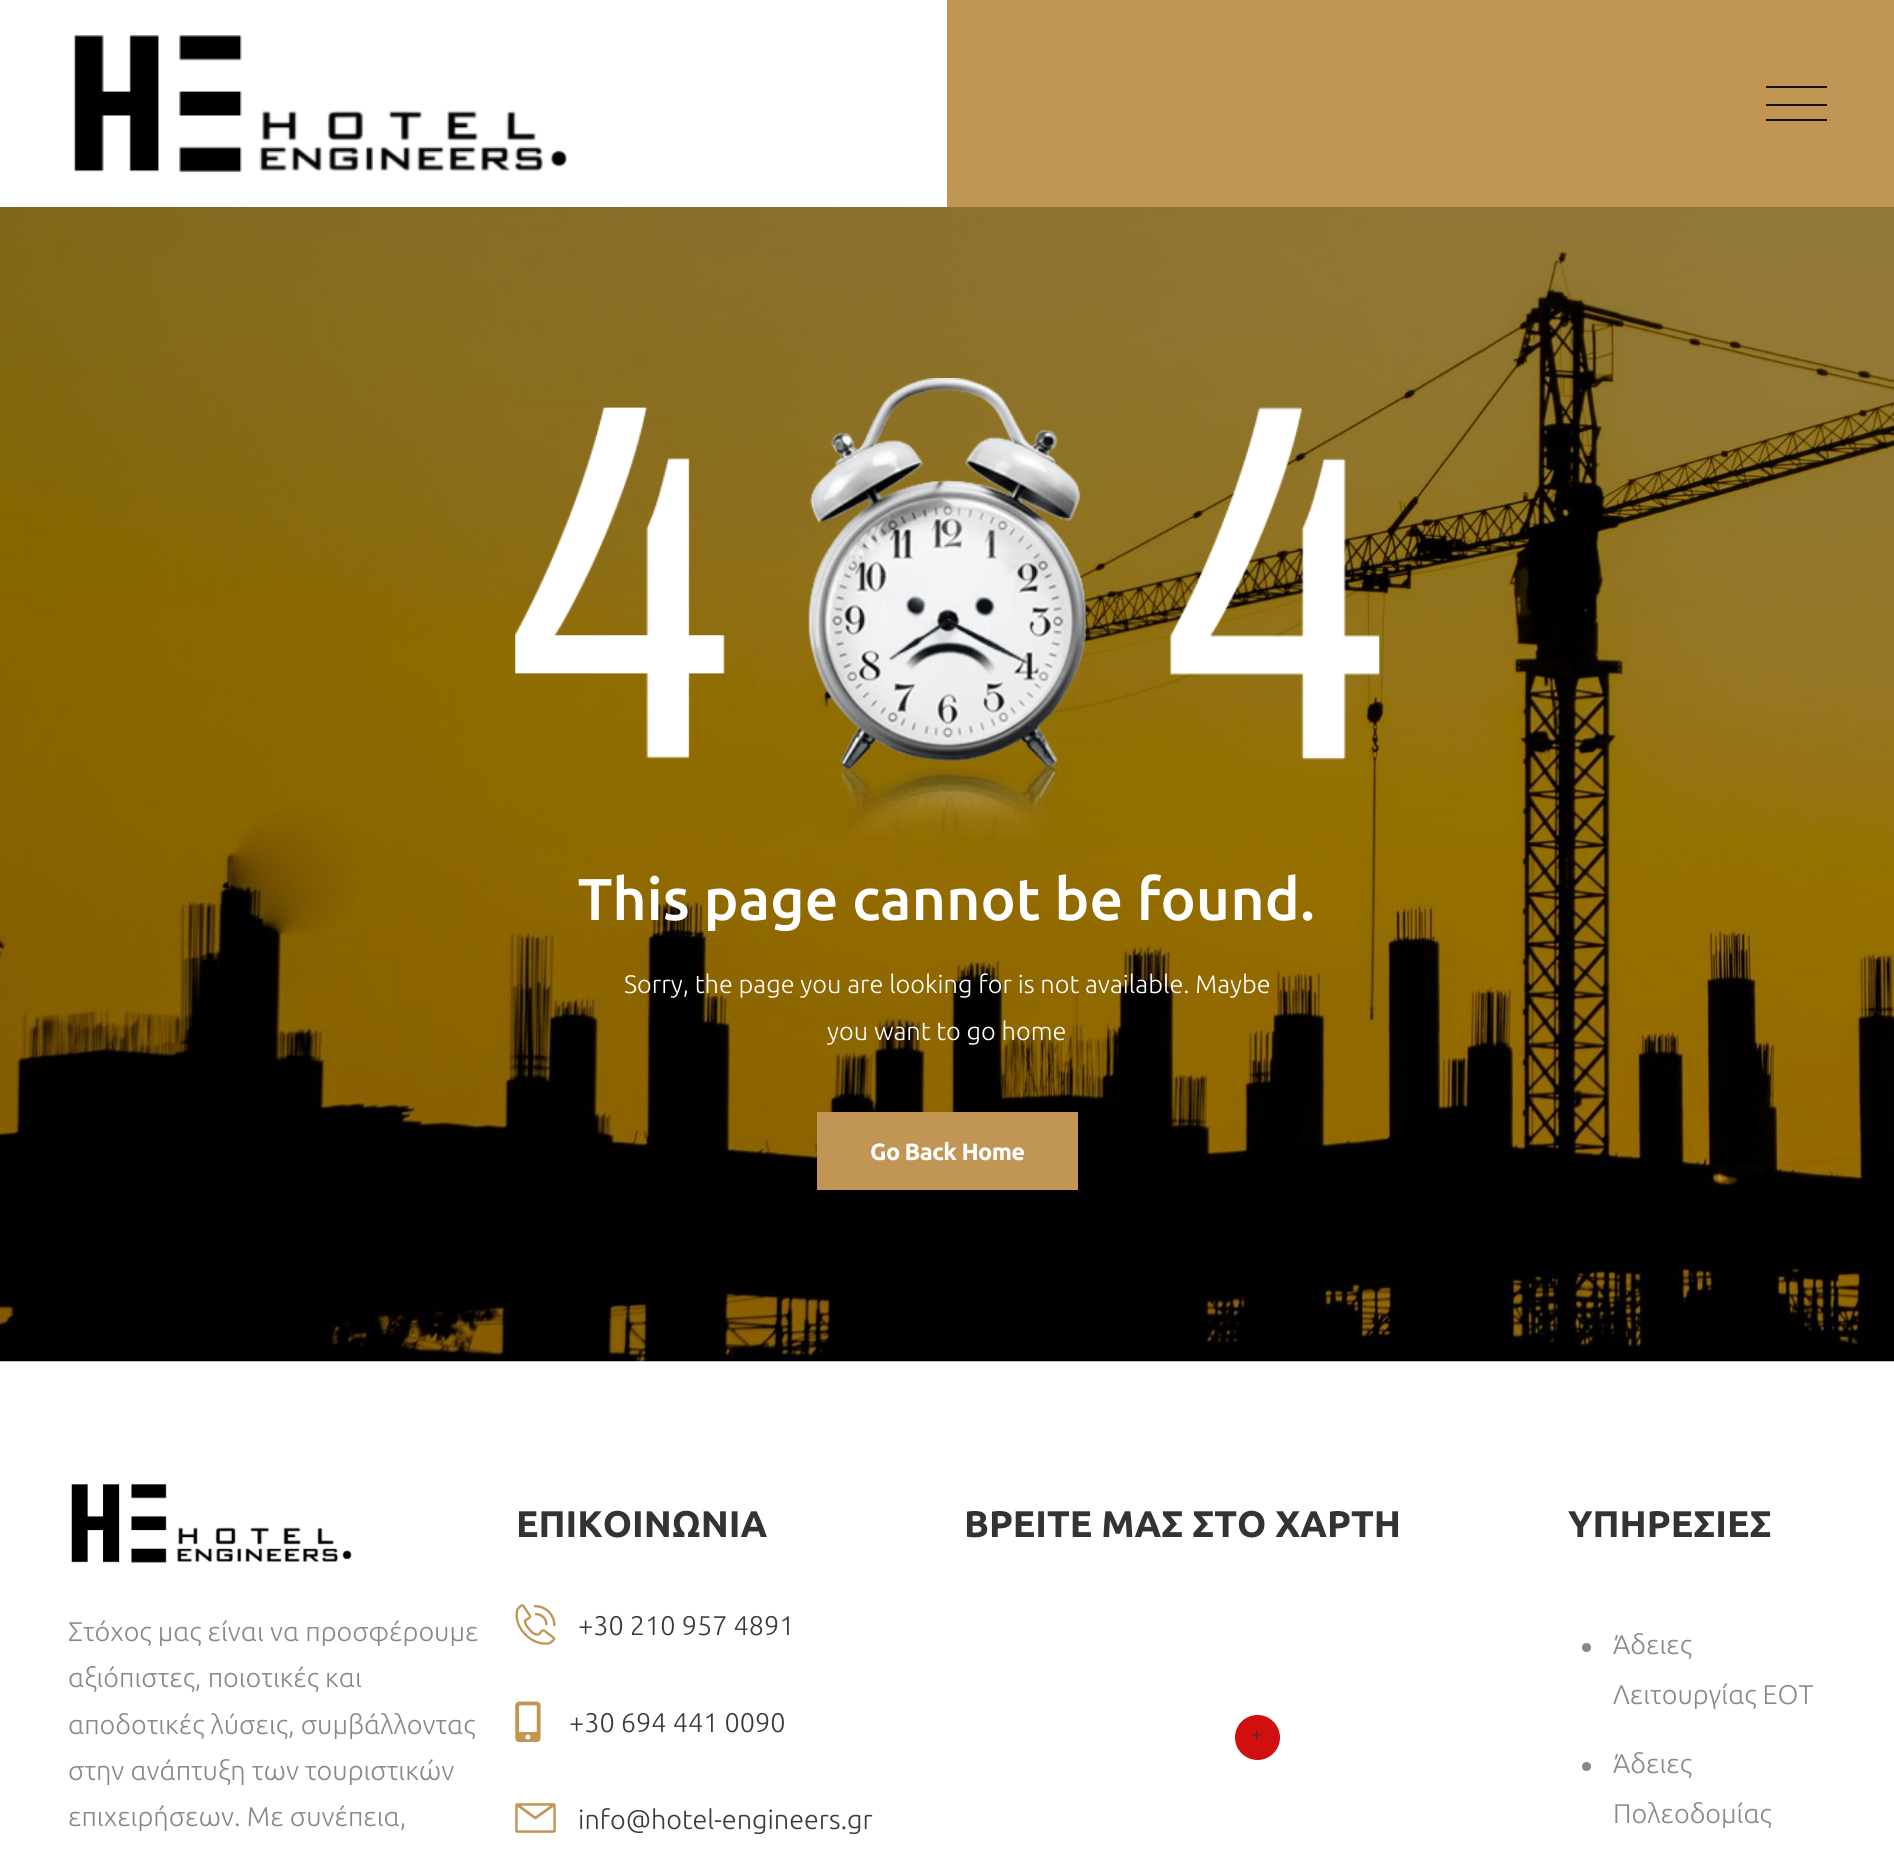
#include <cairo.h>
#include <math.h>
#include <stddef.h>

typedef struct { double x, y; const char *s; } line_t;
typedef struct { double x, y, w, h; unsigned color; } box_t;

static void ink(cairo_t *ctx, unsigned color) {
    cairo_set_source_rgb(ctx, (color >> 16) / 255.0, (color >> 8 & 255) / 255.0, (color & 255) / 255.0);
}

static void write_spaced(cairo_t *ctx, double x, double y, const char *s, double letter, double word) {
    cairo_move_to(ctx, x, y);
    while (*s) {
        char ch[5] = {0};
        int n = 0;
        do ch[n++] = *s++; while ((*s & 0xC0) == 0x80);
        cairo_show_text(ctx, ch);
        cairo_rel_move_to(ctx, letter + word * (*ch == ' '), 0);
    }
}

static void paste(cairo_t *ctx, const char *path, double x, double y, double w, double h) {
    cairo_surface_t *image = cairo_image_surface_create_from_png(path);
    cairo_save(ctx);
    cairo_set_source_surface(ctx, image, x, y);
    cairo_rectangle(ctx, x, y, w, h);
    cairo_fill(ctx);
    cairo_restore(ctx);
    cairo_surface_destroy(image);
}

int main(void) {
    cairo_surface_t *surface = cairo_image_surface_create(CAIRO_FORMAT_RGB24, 1894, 1854);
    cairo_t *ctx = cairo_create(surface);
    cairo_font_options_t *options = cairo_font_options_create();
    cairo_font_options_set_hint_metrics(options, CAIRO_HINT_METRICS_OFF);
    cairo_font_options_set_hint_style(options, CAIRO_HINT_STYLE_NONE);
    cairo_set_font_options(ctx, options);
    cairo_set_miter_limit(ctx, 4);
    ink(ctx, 0xFFFFFF);
    cairo_paint(ctx);
    ink(ctx, 0xC19655);
    cairo_rectangle(ctx, 947, 0, 947, 207);
    cairo_fill(ctx);
    paste(ctx, "media/1.png", 73, 35, 494, 138);
    {
        static const box_t items[] = {
            {1766, 86, 61, 2, 0x111111},
            {1766, 104, 61, 2, 0x111111},
            {1766, 119, 61, 2, 0x111111},
        };
        for (size_t i = 0; i < sizeof items / sizeof *items; i++) {
            ink(ctx, items[i].color);
            cairo_rectangle(ctx, items[i].x, items[i].y, items[i].w, items[i].h);
            cairo_fill(ctx);
        }
    }
    paste(ctx, "media/2.png", 0, 207, 1894, 1155);
    paste(ctx, "media/3.png", 515, 378, 865, 459);
    cairo_select_font_face(ctx, "Ubuntu Medium", CAIRO_FONT_SLANT_NORMAL, CAIRO_FONT_WEIGHT_NORMAL);
    cairo_set_font_size(ctx, 59);
    ink(ctx, 0xFFFFFF);
    cairo_move_to(ctx, 578, 920);
    cairo_show_text(ctx, "This page cannot be found.");
    cairo_select_font_face(ctx, "Ubuntu Light", CAIRO_FONT_SLANT_NORMAL, CAIRO_FONT_WEIGHT_NORMAL);
    cairo_set_font_size(ctx, 25.3);
    cairo_move_to(ctx, 624, 993);
    cairo_show_text(ctx, "Sorry, the page you are looking for is not available. Maybe");
    cairo_move_to(ctx, 827, 1040);
    cairo_show_text(ctx, "you want to go home");
    ink(ctx, 0xC19655);
    cairo_rectangle(ctx, 817, 1112, 261, 78);
    cairo_fill(ctx);
    cairo_select_font_face(ctx, "Ubuntu", CAIRO_FONT_SLANT_NORMAL, CAIRO_FONT_WEIGHT_BOLD);
    cairo_set_font_size(ctx, 23.5);
    ink(ctx, 0xFFFFFF);
    write_spaced(ctx, 870, 1160, "Go Back Home", -0.6, 0);
    paste(ctx, "media/4.png", 71, 1484, 281, 79);
    cairo_select_font_face(ctx, "Ubuntu Light", CAIRO_FONT_SLANT_NORMAL, CAIRO_FONT_WEIGHT_NORMAL);
    cairo_set_font_size(ctx, 27);
    ink(ctx, 0x888888);
    {
        static const line_t items[] = {
            {68, 1641, "Στόχος μας είναι να προσφέρουμε"},
            {68, 1687, "αξιόπιστες, ποιοτικές και"},
            {68, 1734, "αποδοτικές λύσεις, συμβάλλοντας"},
            {68, 1780, "στην ανάπτυξη των τουριστικών"},
            {68, 1826, "επιχειρήσεων. Με συνέπεια,"},
        };
        for (size_t i = 0; i < sizeof items / sizeof *items; i++) {
            cairo_move_to(ctx, items[i].x, items[i].y);
            cairo_show_text(ctx, items[i].s);
        }
    }
    cairo_select_font_face(ctx, "Ubuntu", CAIRO_FONT_SLANT_NORMAL, CAIRO_FONT_WEIGHT_BOLD);
    cairo_set_font_size(ctx, 37.1);
    ink(ctx, 0x323334);
    cairo_move_to(ctx, 516, 1537);
    cairo_show_text(ctx, "ΕΠΙΚΟΙΝΩΝΙΑ");
    paste(ctx, "media/5.png", 515, 1604, 41, 41);
    cairo_select_font_face(ctx, "Ubuntu Light", CAIRO_FONT_SLANT_NORMAL, CAIRO_FONT_WEIGHT_NORMAL);
    cairo_set_font_size(ctx, 27);
    ink(ctx, 0x3A3A3A);
    cairo_move_to(ctx, 578, 1635);
    cairo_show_text(ctx, "+30 210 957 4891");
    paste(ctx, "media/6.png", 515, 1701, 26, 42);
    cairo_move_to(ctx, 569, 1732);
    cairo_show_text(ctx, "+30 694 441 0090");
    paste(ctx, "media/7.png", 515, 1803, 41, 30);
    cairo_move_to(ctx, 578, 1829);
    cairo_show_text(ctx, "info@hotel-engineers.gr");
    cairo_select_font_face(ctx, "Ubuntu", CAIRO_FONT_SLANT_NORMAL, CAIRO_FONT_WEIGHT_BOLD);
    cairo_set_font_size(ctx, 37.1);
    ink(ctx, 0x323334);
    cairo_move_to(ctx, 964, 1537);
    cairo_show_text(ctx, "ΒΡΕΙΤΕ ΜΑΣ ΣΤΟ ΧΑΡΤΗ");
    ink(ctx, 0xD10F0F);
    cairo_new_path(ctx);
    cairo_arc(ctx, 1257.5, 1737.5, 22.5, 0, 2 * M_PI);
    cairo_fill(ctx);
    paste(ctx, "media/8.png", 1251, 1729, 11, 12);
    ink(ctx, 0x323334);
    cairo_move_to(ctx, 1568, 1537);
    cairo_show_text(ctx, "ΥΠΗΡΕΣΙΕΣ");
    ink(ctx, 0x888888);
    cairo_new_path(ctx);
    cairo_arc(ctx, 1586.5, 1647.5, 4.5, 0, 2 * M_PI);
    cairo_fill(ctx);
    cairo_select_font_face(ctx, "Ubuntu Light", CAIRO_FONT_SLANT_NORMAL, CAIRO_FONT_WEIGHT_NORMAL);
    cairo_set_font_size(ctx, 27);
    cairo_move_to(ctx, 1613, 1654);
    cairo_show_text(ctx, "Άδειες");
    cairo_move_to(ctx, 1613, 1704);
    cairo_show_text(ctx, "Λειτουργίας ΕΟΤ");
    cairo_new_path(ctx);
    cairo_arc(ctx, 1586.5, 1766.5, 4.5, 0, 2 * M_PI);
    cairo_fill(ctx);
    cairo_move_to(ctx, 1613, 1773);
    cairo_show_text(ctx, "Άδειες");
    cairo_move_to(ctx, 1613, 1823);
    cairo_show_text(ctx, "Πολεοδομίας");
    cairo_surface_write_to_png(surface, "image.png");
    cairo_font_options_destroy(options);
    cairo_destroy(ctx);
    cairo_surface_destroy(surface);
    return 0;
}
